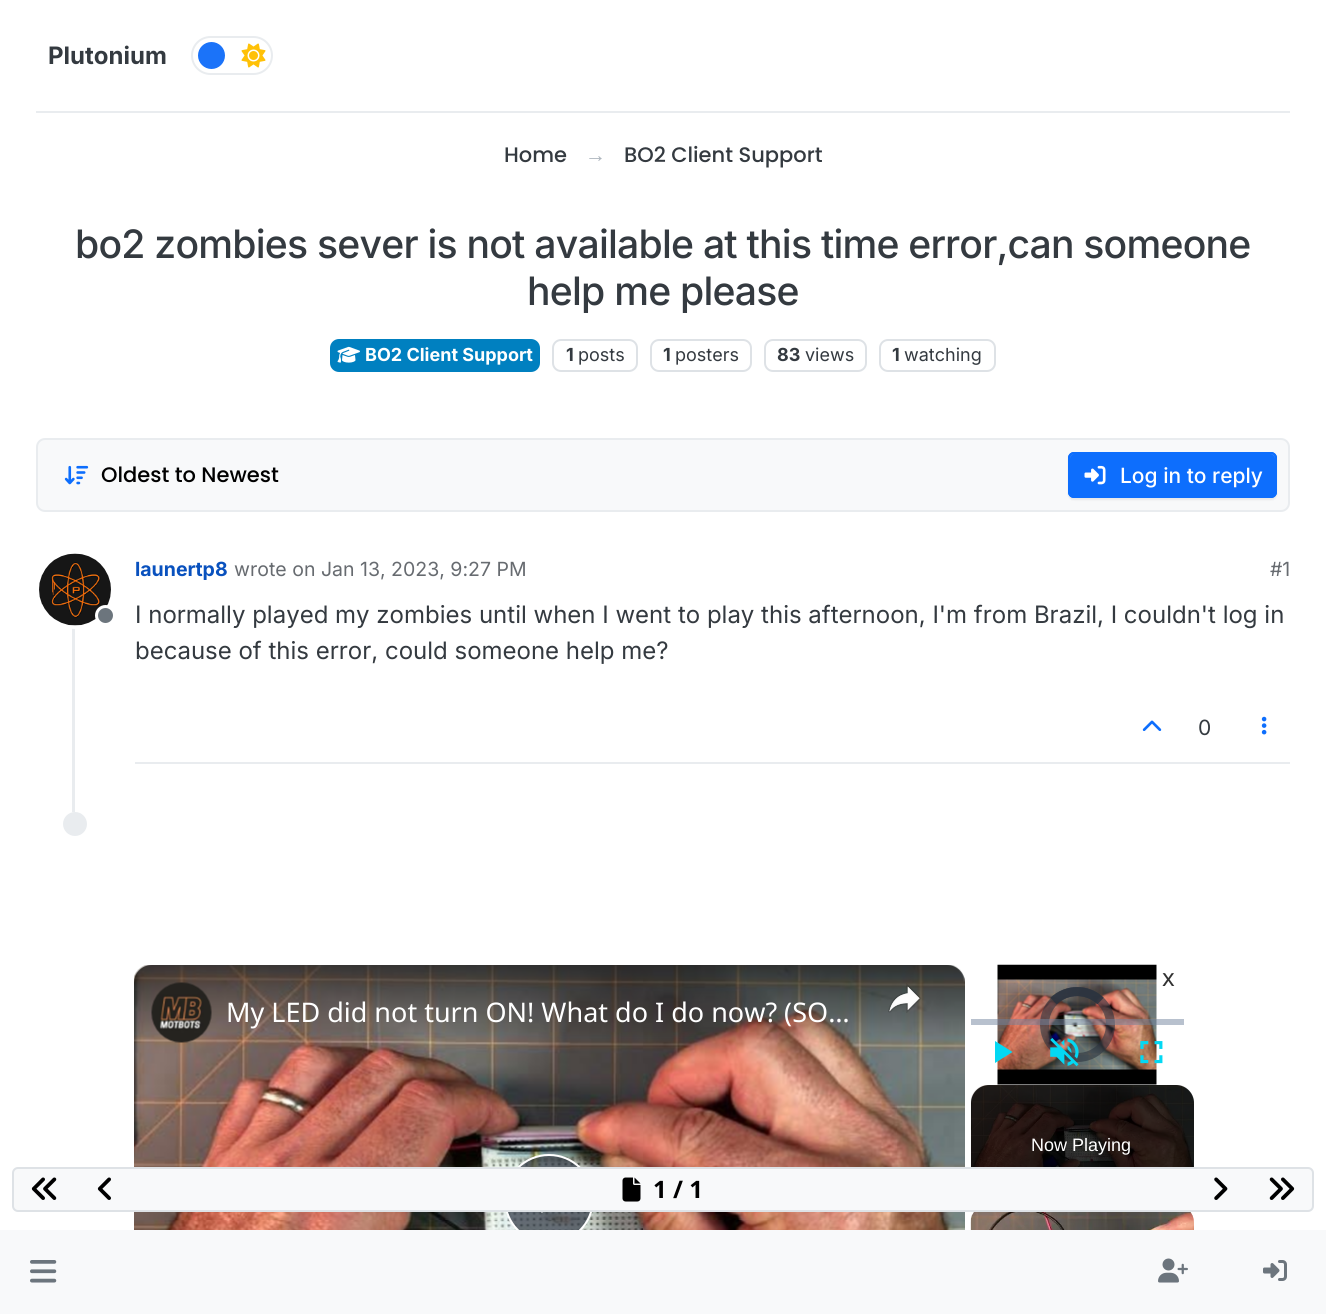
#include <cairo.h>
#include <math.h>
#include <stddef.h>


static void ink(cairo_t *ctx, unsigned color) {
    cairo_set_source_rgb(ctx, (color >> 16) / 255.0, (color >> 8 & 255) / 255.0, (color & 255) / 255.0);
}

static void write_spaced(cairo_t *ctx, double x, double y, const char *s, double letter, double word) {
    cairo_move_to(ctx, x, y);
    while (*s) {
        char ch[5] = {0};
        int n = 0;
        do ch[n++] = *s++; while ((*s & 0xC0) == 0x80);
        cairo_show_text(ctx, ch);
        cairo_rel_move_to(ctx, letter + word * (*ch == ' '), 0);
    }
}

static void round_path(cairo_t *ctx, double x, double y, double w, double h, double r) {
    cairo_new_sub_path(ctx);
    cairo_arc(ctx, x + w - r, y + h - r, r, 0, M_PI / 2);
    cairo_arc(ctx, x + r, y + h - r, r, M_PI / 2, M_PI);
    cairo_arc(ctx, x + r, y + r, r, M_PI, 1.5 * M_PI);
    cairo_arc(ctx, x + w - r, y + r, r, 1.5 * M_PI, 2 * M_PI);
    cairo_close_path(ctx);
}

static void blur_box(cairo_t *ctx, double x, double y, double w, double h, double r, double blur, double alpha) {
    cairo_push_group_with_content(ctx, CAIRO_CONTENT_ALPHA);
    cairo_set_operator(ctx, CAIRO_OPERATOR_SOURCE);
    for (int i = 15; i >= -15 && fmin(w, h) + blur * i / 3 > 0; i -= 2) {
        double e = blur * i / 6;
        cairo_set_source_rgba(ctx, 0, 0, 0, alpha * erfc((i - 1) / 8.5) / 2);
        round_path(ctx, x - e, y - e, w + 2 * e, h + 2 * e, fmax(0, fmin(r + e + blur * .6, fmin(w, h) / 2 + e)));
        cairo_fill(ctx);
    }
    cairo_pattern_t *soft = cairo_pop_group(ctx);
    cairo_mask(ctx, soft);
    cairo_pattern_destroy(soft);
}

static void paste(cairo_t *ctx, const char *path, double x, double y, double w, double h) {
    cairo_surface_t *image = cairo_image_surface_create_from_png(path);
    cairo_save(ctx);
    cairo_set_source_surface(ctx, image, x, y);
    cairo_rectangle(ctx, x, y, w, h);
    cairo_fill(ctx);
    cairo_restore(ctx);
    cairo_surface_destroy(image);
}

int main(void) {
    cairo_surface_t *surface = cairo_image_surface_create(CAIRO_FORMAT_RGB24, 1326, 1314);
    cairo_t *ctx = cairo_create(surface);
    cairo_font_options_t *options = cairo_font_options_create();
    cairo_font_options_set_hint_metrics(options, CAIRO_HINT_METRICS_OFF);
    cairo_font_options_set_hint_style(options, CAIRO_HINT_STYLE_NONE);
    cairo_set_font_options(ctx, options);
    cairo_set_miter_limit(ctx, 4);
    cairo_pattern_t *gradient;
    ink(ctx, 0xFFFFFF);
    cairo_paint(ctx);
    ink(ctx, 0xE9ECEF);
    cairo_rectangle(ctx, 36, 111, 1254, 2);
    cairo_fill(ctx);
    cairo_select_font_face(ctx, "Inter", CAIRO_FONT_SLANT_NORMAL, CAIRO_FONT_WEIGHT_BOLD);
    cairo_set_font_size(ctx, 24);
    ink(ctx, 0x343A40);
    cairo_move_to(ctx, 48, 64);
    cairo_show_text(ctx, "Plutonium");
    round_path(ctx, 192, 37, 80, 37, 18.5);
    ink(ctx, 0xE9ECEF);
    cairo_stroke(ctx);
    ink(ctx, 0x1B73F9);
    cairo_arc(ctx, 211.5, 55.5, 13.5, 0, 2 * M_PI);
    cairo_fill(ctx);
    paste(ctx, "media/1.png", 241, 43, 25, 25);
    cairo_select_font_face(ctx, "Poppins Medium", CAIRO_FONT_SLANT_NORMAL, CAIRO_FONT_WEIGHT_NORMAL);
    cairo_set_font_size(ctx, 21);
    ink(ctx, 0x343A40);
    cairo_move_to(ctx, 504, 162);
    cairo_show_text(ctx, "Home");
    cairo_select_font_face(ctx, "Liberation Sans", CAIRO_FONT_SLANT_NORMAL, CAIRO_FONT_WEIGHT_NORMAL);
    ink(ctx, 0xADB5BD);
    cairo_move_to(ctx, 585, 162);
    cairo_show_text(ctx, "→");
    cairo_select_font_face(ctx, "Poppins Medium", CAIRO_FONT_SLANT_NORMAL, CAIRO_FONT_WEIGHT_NORMAL);
    ink(ctx, 0x343A40);
    cairo_move_to(ctx, 624, 162);
    cairo_show_text(ctx, "BO2 Client Support");
    cairo_select_font_face(ctx, "Inter Medium", CAIRO_FONT_SLANT_NORMAL, CAIRO_FONT_WEIGHT_NORMAL);
    cairo_set_font_size(ctx, 39.15);
    write_spaced(ctx, 75, 258, "bo2 zombies sever is not available at this time error,can someone", -0.78, 0);
    write_spaced(ctx, 527, 305, "help me please", -0.78, 0);
    ink(ctx, 0x0080C0);
    round_path(ctx, 331, 340, 208, 31, 8);
    cairo_fill_preserve(ctx);
    cairo_stroke(ctx);
    paste(ctx, "media/2.png", 337, 346, 23, 17);
    cairo_select_font_face(ctx, "Inter", CAIRO_FONT_SLANT_NORMAL, CAIRO_FONT_WEIGHT_BOLD);
    cairo_set_font_size(ctx, 18);
    ink(ctx, 0xFFFFFF);
    cairo_move_to(ctx, 365, 361);
    cairo_show_text(ctx, "BO2 Client Support");
    round_path(ctx, 553, 340, 84, 31, 8);
    ink(ctx, 0xDEE2E6);
    cairo_stroke(ctx);
    ink(ctx, 0x343A40);
    cairo_move_to(ctx, 566, 361);
    cairo_show_text(ctx, "1");
    cairo_select_font_face(ctx, "Inter", CAIRO_FONT_SLANT_NORMAL, CAIRO_FONT_WEIGHT_NORMAL);
    cairo_move_to(ctx, 578, 361);
    cairo_show_text(ctx, "posts");
    round_path(ctx, 651, 340, 100, 31, 8);
    ink(ctx, 0xDEE2E6);
    cairo_stroke(ctx);
    cairo_select_font_face(ctx, "Inter", CAIRO_FONT_SLANT_NORMAL, CAIRO_FONT_WEIGHT_BOLD);
    ink(ctx, 0x343A40);
    cairo_move_to(ctx, 663, 361);
    cairo_show_text(ctx, "1");
    cairo_select_font_face(ctx, "Inter", CAIRO_FONT_SLANT_NORMAL, CAIRO_FONT_WEIGHT_NORMAL);
    cairo_move_to(ctx, 675, 361);
    cairo_show_text(ctx, "posters");
    round_path(ctx, 765, 340, 101, 31, 8);
    ink(ctx, 0xDEE2E6);
    cairo_stroke(ctx);
    cairo_select_font_face(ctx, "Inter", CAIRO_FONT_SLANT_NORMAL, CAIRO_FONT_WEIGHT_BOLD);
    ink(ctx, 0x343A40);
    cairo_move_to(ctx, 777, 361);
    cairo_show_text(ctx, "83");
    cairo_select_font_face(ctx, "Inter", CAIRO_FONT_SLANT_NORMAL, CAIRO_FONT_WEIGHT_NORMAL);
    cairo_move_to(ctx, 805, 361);
    cairo_show_text(ctx, "views");
    round_path(ctx, 880, 340, 115, 31, 8);
    ink(ctx, 0xDEE2E6);
    cairo_stroke(ctx);
    cairo_select_font_face(ctx, "Inter", CAIRO_FONT_SLANT_NORMAL, CAIRO_FONT_WEIGHT_BOLD);
    ink(ctx, 0x343A40);
    cairo_move_to(ctx, 892, 361);
    cairo_show_text(ctx, "1");
    cairo_select_font_face(ctx, "Inter", CAIRO_FONT_SLANT_NORMAL, CAIRO_FONT_WEIGHT_NORMAL);
    cairo_move_to(ctx, 904, 361);
    cairo_show_text(ctx, "watching");
    ink(ctx, 0xF8F9FA);
    round_path(ctx, 37, 439, 1252, 72, 8);
    cairo_fill_preserve(ctx);
    ink(ctx, 0xE9ECEF);
    cairo_stroke(ctx);
    paste(ctx, "media/3.png", 64, 465, 25, 20);
    cairo_select_font_face(ctx, "Poppins Medium", CAIRO_FONT_SLANT_NORMAL, CAIRO_FONT_WEIGHT_NORMAL);
    cairo_set_font_size(ctx, 21);
    ink(ctx, 0x000000);
    cairo_move_to(ctx, 101, 482);
    cairo_show_text(ctx, "Oldest to Newest");
    ink(ctx, 0x000000);
    blur_box(ctx, 1068, 453, 209, 47, 6, 1, 0.07);
    ink(ctx, 0x0D6EFD);
    round_path(ctx, 1068, 452, 209, 46, 6);
    cairo_fill(ctx);
    ink(ctx, 0x3184FD);
    cairo_new_path(ctx);
    cairo_move_to(ctx, 1074, 454);
    cairo_line_to(ctx, 1270, 454);
    cairo_curve_to(ctx, 1273, 454, 1275, 457, 1275, 459);
    cairo_line_to(ctx, 1275, 458);
    cairo_curve_to(ctx, 1275, 455, 1273, 453, 1270, 453);
    cairo_line_to(ctx, 1075, 453);
    cairo_curve_to(ctx, 1072, 453, 1070, 455, 1070, 458);
    cairo_line_to(ctx, 1070, 459);
    cairo_curve_to(ctx, 1070, 457, 1072, 454, 1074, 454);
    cairo_close_path(ctx);
    cairo_fill(ctx);
    round_path(ctx, 1069, 453, 207, 44, 5);
    ink(ctx, 0x0D6EFD);
    cairo_stroke(ctx);
    paste(ctx, "media/4.png", 1084, 465, 22, 20);
    cairo_select_font_face(ctx, "Inter Medium", CAIRO_FONT_SLANT_NORMAL, CAIRO_FONT_WEIGHT_NORMAL);
    ink(ctx, 0xFFFFFF);
    cairo_move_to(ctx, 1120, 483);
    cairo_show_text(ctx, "Log in to reply");
    ink(ctx, 0xE9ECEF);
    cairo_rectangle(ctx, 72, 625, 3, 187);
    cairo_fill(ctx);
    ink(ctx, 0xFFFFFF);
    cairo_arc(ctx, 75, 590, 37.5, 0, 2 * M_PI);
    cairo_fill_preserve(ctx);
    cairo_set_line_width(ctx, 3);
    cairo_stroke(ctx);
    paste(ctx, "media/5.png", 39, 553, 72, 73);
    ink(ctx, 0x6C757D);
    cairo_arc(ctx, 105.5, 615.5, 9, 0, 2 * M_PI);
    cairo_fill_preserve(ctx);
    ink(ctx, 0xFFFFFF);
    cairo_stroke(ctx);
    cairo_select_font_face(ctx, "Inter", CAIRO_FONT_SLANT_NORMAL, CAIRO_FONT_WEIGHT_BOLD);
    cairo_set_font_size(ctx, 19.5);
    ink(ctx, 0x0951BE);
    cairo_move_to(ctx, 135, 576);
    cairo_show_text(ctx, "launertp8");
    cairo_select_font_face(ctx, "Inter", CAIRO_FONT_SLANT_NORMAL, CAIRO_FONT_WEIGHT_NORMAL);
    ink(ctx, 0x676B70);
    cairo_move_to(ctx, 234, 576);
    cairo_show_text(ctx, "wrote on Jan 13, 2023, 9:27 PM");
    cairo_move_to(ctx, 1270, 576);
    cairo_show_text(ctx, "#1");
    cairo_set_font_size(ctx, 24);
    ink(ctx, 0x343A40);
    cairo_move_to(ctx, 135, 623);
    cairo_show_text(ctx, "I normally played my zombies until when I went to play this afternoon, I'm from Brazil, I couldn't log in");
    cairo_move_to(ctx, 135, 659);
    cairo_show_text(ctx, "because of this error, could someone help me?");
    ink(ctx, 0xE9ECEF);
    cairo_rectangle(ctx, 135, 762, 1155, 2);
    cairo_fill(ctx);
    paste(ctx, "media/6.png", 1142, 720, 20, 11);
    cairo_set_font_size(ctx, 21);
    ink(ctx, 0x343A40);
    cairo_move_to(ctx, 1198, 735);
    cairo_show_text(ctx, "0");
    paste(ctx, "media/7.png", 1261, 716, 6, 19);
    ink(ctx, 0xE9ECEF);
    cairo_arc(ctx, 75, 824, 12, 0, 2 * M_PI);
    cairo_fill(ctx);
    paste(ctx, "media/8.png", 134, 965, 831, 265);
    cairo_set_source_rgba(ctx, 0.169, 0.2, 0.247, 0.7);
    cairo_arc(ctx, 549, 1199, 44, 0, 2 * M_PI);
    cairo_fill_preserve(ctx);
    ink(ctx, 0xFFFFFF);
    cairo_set_line_width(ctx, 2);
    cairo_stroke(ctx);
    cairo_new_path(ctx);
    cairo_move_to(ctx, 541.5, 1187);
    cairo_line_to(ctx, 541.5, 1213);
    cairo_line_to(ctx, 562, 1200);
    cairo_close_path(ctx);
    cairo_fill(ctx);
    gradient = cairo_pattern_create_linear(549, 965, 549, 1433);
    cairo_pattern_add_color_stop_rgba(gradient, 0, 0, 0, 0, 0.6);
    cairo_pattern_add_color_stop_rgba(gradient, 0.16, 0, 0, 0, 0);
    cairo_pattern_add_color_stop_rgba(gradient, 0.84, 0, 0, 0, 0);
    cairo_pattern_add_color_stop_rgba(gradient, 1, 0, 0, 0, 0.8);
    cairo_set_source(ctx, gradient);
    cairo_pattern_destroy(gradient);
    round_path(ctx, 134, 965, 831, 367, 18);
    cairo_fill(ctx);
    paste(ctx, "media/9.png", 151, 982, 61, 61);
    cairo_select_font_face(ctx, "Noto Sans", CAIRO_FONT_SLANT_NORMAL, CAIRO_FONT_WEIGHT_NORMAL);
    cairo_set_font_size(ctx, 27);
    ink(ctx, 0xFFFFFF);
    cairo_move_to(ctx, 226, 1022);
    cairo_show_text(ctx, "My LED did not turn ON! What do I do now? (SO…");
    paste(ctx, "media/10.png", 888, 983, 34, 30);
    paste(ctx, "media/11.png", 997, 964, 160, 121);
    cairo_arc(ctx, 1077.5, 1024.5, 33, 0, 2 * M_PI);
    cairo_set_source_rgba(ctx, 0.169, 0.2, 0.247, 0.59);
    cairo_set_line_width(ctx, 9);
    cairo_stroke(ctx);
    cairo_new_path(ctx);
    cairo_move_to(ctx, 1053.5, 1001);
    cairo_curve_to(ctx, 1066.5, 988.5, 1087.5, 988.5, 1100.5, 1001);
    cairo_stroke(ctx);
    cairo_new_path(ctx);
    cairo_move_to(ctx, 1053.5, 1001);
    cairo_curve_to(ctx, 1066.5, 988.5, 1087.5, 988.5, 1100.5, 1001);
    cairo_stroke(ctx);
    cairo_set_source_rgba(ctx, 0.451, 0.522, 0.624, 0.5);
    cairo_rectangle(ctx, 971, 1019, 213, 6);
    cairo_fill(ctx);
    ink(ctx, 0x03D8F3);
    cairo_new_path(ctx);
    cairo_move_to(ctx, 995, 1041);
    cairo_line_to(ctx, 995, 1063);
    cairo_line_to(ctx, 1012.5, 1052);
    cairo_close_path(ctx);
    cairo_fill(ctx);
    paste(ctx, "media/12.png", 1050, 1038, 29, 29);
    paste(ctx, "media/13.png", 1140, 1041, 23, 23);
    cairo_set_font_size(ctx, 24);
    ink(ctx, 0x333333);
    cairo_move_to(ctx, 1162, 986);
    cairo_show_text(ctx, "x");
    ink(ctx, 0x000000);
    round_path(ctx, 971, 1085, 223, 120, 18);
    cairo_fill(ctx);
    paste(ctx, "media/14.png", 970, 1085, 224, 82);
    cairo_select_font_face(ctx, "Liberation Sans", CAIRO_FONT_SLANT_NORMAL, CAIRO_FONT_WEIGHT_NORMAL);
    cairo_set_font_size(ctx, 18);
    ink(ctx, 0xFFFFFF);
    cairo_move_to(ctx, 1031, 1151);
    cairo_show_text(ctx, "Now Playing");
    paste(ctx, "media/15.png", 970, 1212, 224, 18);
    ink(ctx, 0xF8F9FA);
    round_path(ctx, 13, 1168, 1300, 43, 5);
    cairo_fill_preserve(ctx);
    ink(ctx, 0xDEE2E6);
    cairo_set_line_width(ctx, 2);
    cairo_stroke(ctx);
    paste(ctx, "media/16.png", 31, 1177, 26, 23);
    paste(ctx, "media/17.png", 97, 1177, 14, 23);
    paste(ctx, "media/18.png", 622, 1177, 19, 25);
    cairo_select_font_face(ctx, "Noto Sans", CAIRO_FONT_SLANT_NORMAL, CAIRO_FONT_WEIGHT_BOLD);
    cairo_set_font_size(ctx, 24);
    ink(ctx, 0x000000);
    cairo_move_to(ctx, 653, 1198);
    cairo_show_text(ctx, "1 / 1");
    paste(ctx, "media/19.png", 1214, 1177, 14, 23);
    paste(ctx, "media/20.png", 1269, 1177, 26, 23);
    ink(ctx, 0xF8F9FA);
    cairo_rectangle(ctx, 0, 1230, 1326, 84);
    cairo_fill(ctx);
    paste(ctx, "media/21.png", 30, 1260, 27, 23);
    paste(ctx, "media/22.png", 1158, 1258, 30, 25);
    paste(ctx, "media/23.png", 1263, 1260, 24, 21);
    cairo_surface_write_to_png(surface, "image.png");
    cairo_font_options_destroy(options);
    cairo_destroy(ctx);
    cairo_surface_destroy(surface);
    return 0;
}
